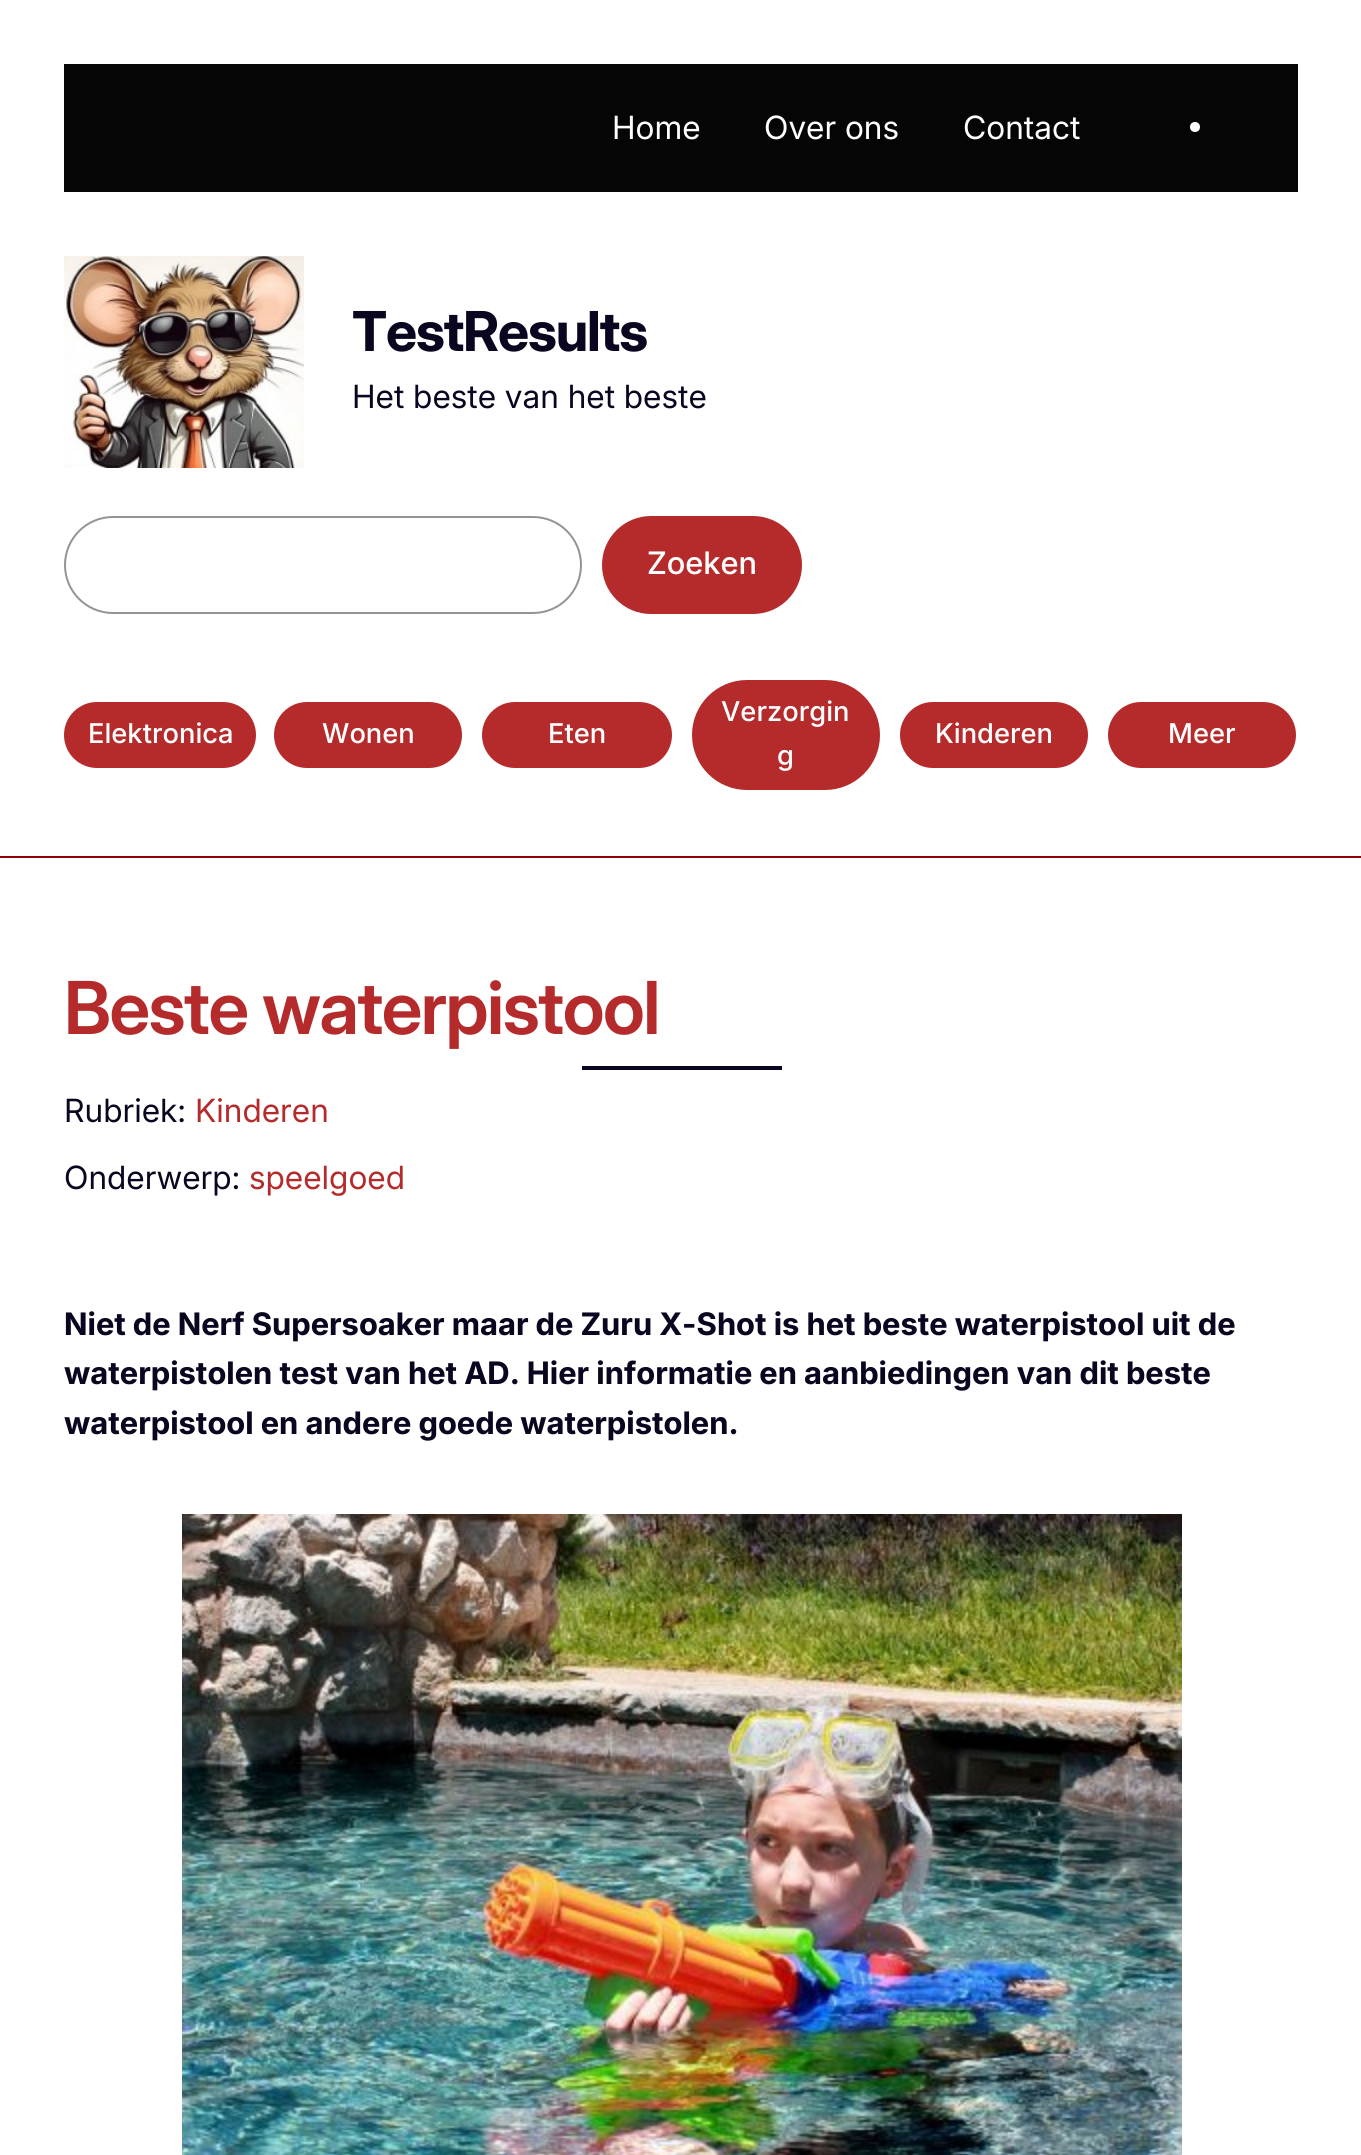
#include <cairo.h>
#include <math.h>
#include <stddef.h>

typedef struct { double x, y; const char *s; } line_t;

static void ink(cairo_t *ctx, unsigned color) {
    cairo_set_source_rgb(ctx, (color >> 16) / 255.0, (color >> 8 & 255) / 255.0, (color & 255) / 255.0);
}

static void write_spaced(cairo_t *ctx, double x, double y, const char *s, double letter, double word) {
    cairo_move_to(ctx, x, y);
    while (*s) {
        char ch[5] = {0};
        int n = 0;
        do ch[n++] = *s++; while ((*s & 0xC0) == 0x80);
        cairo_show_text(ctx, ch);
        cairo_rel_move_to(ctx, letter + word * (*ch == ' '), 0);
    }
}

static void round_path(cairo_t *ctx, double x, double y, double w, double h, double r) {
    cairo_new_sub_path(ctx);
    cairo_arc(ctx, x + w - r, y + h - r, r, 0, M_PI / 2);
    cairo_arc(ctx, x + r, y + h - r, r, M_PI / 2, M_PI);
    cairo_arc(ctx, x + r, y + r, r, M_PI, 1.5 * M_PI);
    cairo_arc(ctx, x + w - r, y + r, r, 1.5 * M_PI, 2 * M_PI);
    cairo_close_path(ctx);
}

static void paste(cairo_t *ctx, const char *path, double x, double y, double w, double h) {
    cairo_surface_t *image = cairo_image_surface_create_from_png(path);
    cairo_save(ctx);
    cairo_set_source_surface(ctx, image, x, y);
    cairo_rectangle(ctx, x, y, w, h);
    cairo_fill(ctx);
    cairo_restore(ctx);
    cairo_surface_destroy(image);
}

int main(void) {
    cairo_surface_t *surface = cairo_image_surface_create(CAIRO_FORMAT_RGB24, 1361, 2155);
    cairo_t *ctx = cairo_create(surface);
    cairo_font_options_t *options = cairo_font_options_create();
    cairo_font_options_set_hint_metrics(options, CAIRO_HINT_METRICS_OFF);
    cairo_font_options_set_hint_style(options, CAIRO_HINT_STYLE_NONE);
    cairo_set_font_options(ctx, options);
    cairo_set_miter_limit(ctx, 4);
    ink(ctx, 0xFFFFFF);
    cairo_paint(ctx);
    ink(ctx, 0x050505);
    cairo_rectangle(ctx, 64, 64, 1234, 128);
    cairo_fill(ctx);
    cairo_select_font_face(ctx, "Inter", CAIRO_FONT_SLANT_NORMAL, CAIRO_FONT_WEIGHT_NORMAL);
    cairo_set_font_size(ctx, 32);
    ink(ctx, 0xFFFFFF);
    {
        static const line_t items[] = {
            {612, 139, "Home"},
            {764, 139, "Over ons"},
            {963, 139, "Contact"},
        };
        for (size_t i = 0; i < sizeof items / sizeof *items; i++) {
            cairo_move_to(ctx, items[i].x, items[i].y);
            cairo_show_text(ctx, items[i].s);
        }
    }
    cairo_new_path(ctx);
    cairo_arc(ctx, 1195, 127, 5, 0, 2 * M_PI);
    cairo_fill(ctx);
    paste(ctx, "media/1.png", 64, 256, 240, 212);
    cairo_select_font_face(ctx, "Inter", CAIRO_FONT_SLANT_NORMAL, CAIRO_FONT_WEIGHT_BOLD);
    cairo_set_font_size(ctx, 55);
    ink(ctx, 0x0B0620);
    write_spaced(ctx, 352, 351, "TestResults", -1.1, 0);
    cairo_select_font_face(ctx, "Inter", CAIRO_FONT_SLANT_NORMAL, CAIRO_FONT_WEIGHT_NORMAL);
    cairo_set_font_size(ctx, 32);
    cairo_move_to(ctx, 352, 408);
    cairo_show_text(ctx, "Het beste van het beste");
    round_path(ctx, 65, 517, 516, 96, 48);
    ink(ctx, 0x949494);
    cairo_stroke(ctx);
    ink(ctx, 0xB52B2B);
    round_path(ctx, 602, 516, 200, 98, 49);
    cairo_fill(ctx);
    cairo_select_font_face(ctx, "Inter Medium", CAIRO_FONT_SLANT_NORMAL, CAIRO_FONT_WEIGHT_NORMAL);
    cairo_set_font_size(ctx, 31);
    ink(ctx, 0xFFFFFF);
    cairo_move_to(ctx, 647, 574);
    cairo_show_text(ctx, "Zoeken");
    ink(ctx, 0xB52B2B);
    round_path(ctx, 64, 702, 192, 66, 33);
    cairo_fill(ctx);
    cairo_select_font_face(ctx, "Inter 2 Medium", CAIRO_FONT_SLANT_NORMAL, CAIRO_FONT_WEIGHT_NORMAL);
    cairo_set_font_size(ctx, 27.25);
    ink(ctx, 0xFFFFFF);
    cairo_move_to(ctx, 88, 743);
    cairo_show_text(ctx, "Elektronica");
    ink(ctx, 0xB52B2B);
    round_path(ctx, 273, 701, 190, 68, 34);
    cairo_fill_preserve(ctx);
    ink(ctx, 0xFFFFFF);
    cairo_stroke(ctx);
    cairo_move_to(ctx, 322, 743);
    cairo_show_text(ctx, "Wonen");
    ink(ctx, 0xB52B2B);
    round_path(ctx, 481, 701, 192, 68, 34);
    cairo_fill_preserve(ctx);
    ink(ctx, 0xFFFFFF);
    cairo_stroke(ctx);
    cairo_move_to(ctx, 548, 743);
    cairo_show_text(ctx, "Eten");
    ink(ctx, 0xB52B2B);
    round_path(ctx, 691, 679, 190, 112, 56);
    cairo_fill_preserve(ctx);
    ink(ctx, 0xFFFFFF);
    cairo_stroke(ctx);
    cairo_move_to(ctx, 721, 721);
    cairo_show_text(ctx, "Verzorgin");
    cairo_move_to(ctx, 777, 765);
    cairo_show_text(ctx, "g");
    ink(ctx, 0xB52B2B);
    round_path(ctx, 899, 701, 190, 68, 34);
    cairo_fill_preserve(ctx);
    ink(ctx, 0xFFFFFF);
    cairo_stroke(ctx);
    cairo_move_to(ctx, 935, 743);
    cairo_show_text(ctx, "Kinderen");
    ink(ctx, 0xB52B2B);
    round_path(ctx, 1107, 701, 190, 68, 34);
    cairo_fill_preserve(ctx);
    ink(ctx, 0xFFFFFF);
    cairo_stroke(ctx);
    cairo_move_to(ctx, 1168, 743);
    cairo_show_text(ctx, "Meer");
    ink(ctx, 0x8D0303);
    cairo_rectangle(ctx, 0, 856, 1361, 2);
    cairo_fill(ctx);
    cairo_select_font_face(ctx, "Inter SemiBold", CAIRO_FONT_SLANT_NORMAL, CAIRO_FONT_WEIGHT_NORMAL);
    cairo_set_font_size(ctx, 73);
    ink(ctx, 0xB52B2B);
    write_spaced(ctx, 64, 1034, "Beste waterpistool", -1.5, 0);
    ink(ctx, 0x0B0620);
    cairo_rectangle(ctx, 582, 1066, 200, 4);
    cairo_fill(ctx);
    cairo_select_font_face(ctx, "Inter", CAIRO_FONT_SLANT_NORMAL, CAIRO_FONT_WEIGHT_NORMAL);
    cairo_set_font_size(ctx, 32);
    cairo_move_to(ctx, 64, 1122);
    cairo_show_text(ctx, "Rubriek:");
    ink(ctx, 0xB52B2B);
    cairo_move_to(ctx, 195, 1122);
    cairo_show_text(ctx, "Kinderen");
    ink(ctx, 0x0B0620);
    cairo_move_to(ctx, 64, 1189);
    cairo_show_text(ctx, "Onderwerp:");
    ink(ctx, 0xB52B2B);
    cairo_move_to(ctx, 249, 1189);
    cairo_show_text(ctx, "speelgoed");
    cairo_select_font_face(ctx, "Inter 2", CAIRO_FONT_SLANT_NORMAL, CAIRO_FONT_WEIGHT_BOLD);
    cairo_set_font_size(ctx, 31);
    ink(ctx, 0x0B0620);
    {
        static const line_t items[] = {
            {64, 1335, "Niet de Nerf Supersoaker maar de Zuru X-Shot is het beste waterpistool uit de"},
            {64, 1384, "waterpistolen test van het AD. Hier informatie en aanbiedingen van dit beste"},
            {64, 1434, "waterpistool en andere goede waterpistolen."},
        };
        for (size_t i = 0; i < sizeof items / sizeof *items; i++) {
            cairo_move_to(ctx, items[i].x, items[i].y);
            cairo_show_text(ctx, items[i].s);
        }
    }
    paste(ctx, "media/2.png", 182, 1514, 1000, 641);
    cairo_surface_write_to_png(surface, "image.png");
    cairo_font_options_destroy(options);
    cairo_destroy(ctx);
    cairo_surface_destroy(surface);
    return 0;
}
